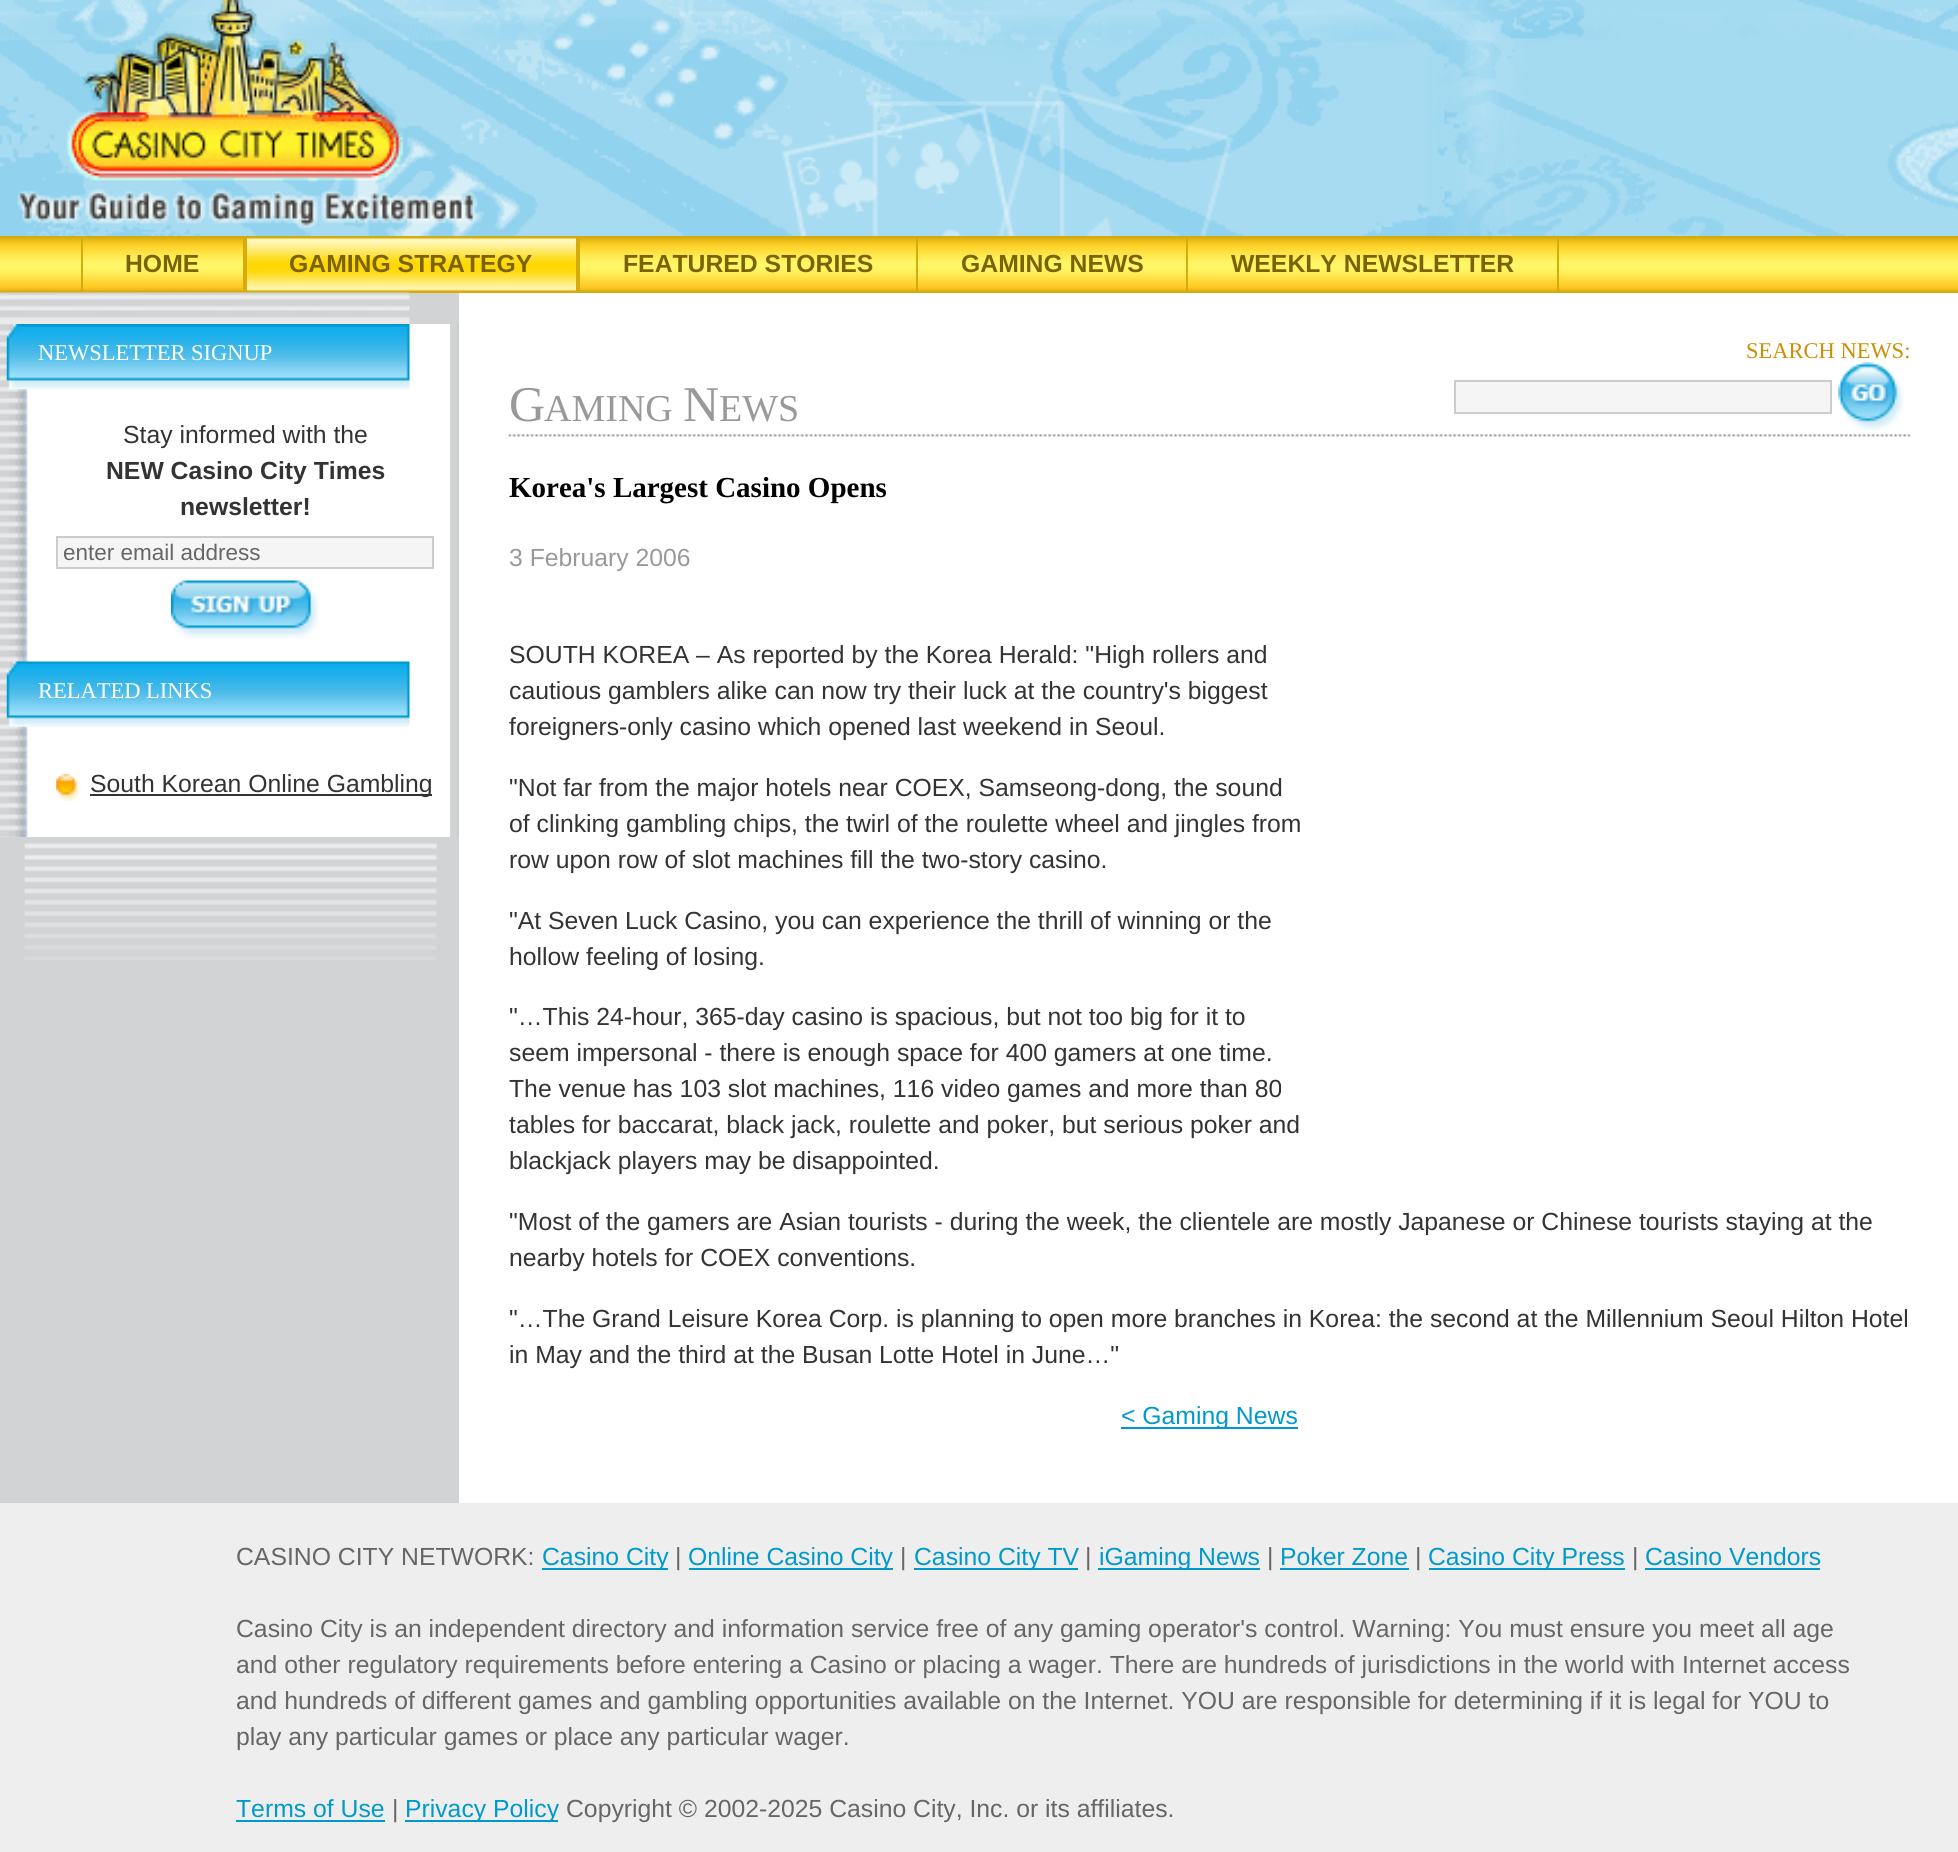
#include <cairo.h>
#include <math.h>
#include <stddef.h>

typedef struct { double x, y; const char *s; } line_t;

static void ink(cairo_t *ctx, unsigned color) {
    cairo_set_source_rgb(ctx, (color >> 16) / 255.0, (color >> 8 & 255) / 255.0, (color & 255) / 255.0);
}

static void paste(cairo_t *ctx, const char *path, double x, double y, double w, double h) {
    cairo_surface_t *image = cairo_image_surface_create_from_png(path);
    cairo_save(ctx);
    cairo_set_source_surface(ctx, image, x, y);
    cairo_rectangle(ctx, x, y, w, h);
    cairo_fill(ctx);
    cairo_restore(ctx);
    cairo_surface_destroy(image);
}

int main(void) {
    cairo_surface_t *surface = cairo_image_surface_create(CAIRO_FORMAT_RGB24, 1958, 1852);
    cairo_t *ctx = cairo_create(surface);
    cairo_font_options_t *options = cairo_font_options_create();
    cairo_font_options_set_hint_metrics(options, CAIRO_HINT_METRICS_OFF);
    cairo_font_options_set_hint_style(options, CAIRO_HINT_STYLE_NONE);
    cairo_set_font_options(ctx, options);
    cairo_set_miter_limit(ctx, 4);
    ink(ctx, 0xFFFFFF);
    cairo_paint(ctx);
    paste(ctx, "media/1.png", 0, 0, 1958, 236);
    paste(ctx, "media/2.png", 17, 0, 460, 228);
    ink(ctx, 0xD5AC0D);
    cairo_rectangle(ctx, 0, 236, 1958, 57);
    cairo_fill(ctx);
    paste(ctx, "media/3.png", 0, 238, 1958, 53);
    cairo_rectangle(ctx, 243, 236, 4, 57);
    cairo_fill(ctx);
    cairo_rectangle(ctx, 81, 236, 2, 57);
    cairo_fill(ctx);
    cairo_select_font_face(ctx, "Liberation Sans", CAIRO_FONT_SLANT_NORMAL, CAIRO_FONT_WEIGHT_BOLD);
    cairo_set_font_size(ctx, 24.75);
    ink(ctx, 0x7B6304);
    cairo_move_to(ctx, 125, 272);
    cairo_show_text(ctx, "HOME");
    ink(ctx, 0xD5AC0D);
    cairo_rectangle(ctx, 247, 238, 329, 53);
    cairo_fill(ctx);
    paste(ctx, "media/4.png", 247, 238, 329, 53);
    cairo_rectangle(ctx, 576, 236, 4, 57);
    cairo_fill(ctx);
    ink(ctx, 0x7B6304);
    cairo_move_to(ctx, 289, 272);
    cairo_show_text(ctx, "GAMING STRATEGY");
    ink(ctx, 0xD5AC0D);
    cairo_rectangle(ctx, 916, 236, 2, 57);
    cairo_fill(ctx);
    ink(ctx, 0x7B6304);
    cairo_move_to(ctx, 623, 272);
    cairo_show_text(ctx, "FEATURED STORIES");
    ink(ctx, 0xD5AC0D);
    cairo_rectangle(ctx, 1186, 236, 2, 57);
    cairo_fill(ctx);
    ink(ctx, 0x7B6304);
    cairo_move_to(ctx, 961, 272);
    cairo_show_text(ctx, "GAMING NEWS");
    ink(ctx, 0xD5AC0D);
    cairo_rectangle(ctx, 1557, 236, 2, 57);
    cairo_fill(ctx);
    ink(ctx, 0x7B6304);
    cairo_move_to(ctx, 1231, 272);
    cairo_show_text(ctx, "WEEKLY NEWSLETTER");
    ink(ctx, 0xD1D3D4);
    cairo_rectangle(ctx, 0, 293, 459, 1210);
    cairo_fill(ctx);
    paste(ctx, "media/5.png", 0, 292, 410, 32);
    paste(ctx, "media/6.png", 24, 843, 413, 117);
    paste(ctx, "media/7.png", 0, 324, 450, 513);
    ink(ctx, 0xCCCCCC);
    cairo_rectangle(ctx, 457, 324, 2, 513);
    cairo_fill(ctx);
    paste(ctx, "media/8.png", 6, 324, 404, 66);
    cairo_select_font_face(ctx, "Liberation Serif", CAIRO_FONT_SLANT_NORMAL, CAIRO_FONT_WEIGHT_NORMAL);
    cairo_set_font_size(ctx, 22.5);
    ink(ctx, 0xFFFFFF);
    cairo_move_to(ctx, 38, 360);
    cairo_show_text(ctx, "NEWSLETTER SIGNUP");
    cairo_select_font_face(ctx, "Liberation Sans", CAIRO_FONT_SLANT_NORMAL, CAIRO_FONT_WEIGHT_NORMAL);
    cairo_set_font_size(ctx, 24.75);
    ink(ctx, 0x333333);
    cairo_move_to(ctx, 123, 443);
    cairo_show_text(ctx, "Stay informed with the");
    cairo_select_font_face(ctx, "Liberation Sans", CAIRO_FONT_SLANT_NORMAL, CAIRO_FONT_WEIGHT_BOLD);
    cairo_move_to(ctx, 106, 479);
    cairo_show_text(ctx, "NEW Casino City Times");
    cairo_move_to(ctx, 180, 515);
    cairo_show_text(ctx, "newsletter!");
    ink(ctx, 0xF5F5F5);
    cairo_rectangle(ctx, 57, 537, 376, 31);
    cairo_fill_preserve(ctx);
    ink(ctx, 0xCCCCCC);
    cairo_stroke(ctx);
    cairo_select_font_face(ctx, "Liberation Sans", CAIRO_FONT_SLANT_NORMAL, CAIRO_FONT_WEIGHT_NORMAL);
    cairo_set_font_size(ctx, 22.5);
    ink(ctx, 0x666666);
    cairo_move_to(ctx, 63, 560);
    cairo_show_text(ctx, "enter email address");
    paste(ctx, "media/9.png", 171, 580, 148, 59);
    paste(ctx, "media/10.png", 6, 661, 404, 66);
    cairo_select_font_face(ctx, "Liberation Serif", CAIRO_FONT_SLANT_NORMAL, CAIRO_FONT_WEIGHT_NORMAL);
    ink(ctx, 0xFFFFFF);
    cairo_move_to(ctx, 38, 698);
    cairo_show_text(ctx, "RELATED LINKS");
    paste(ctx, "media/11.png", 56, 774, 25, 27);
    ink(ctx, 0x333333);
    cairo_rectangle(ctx, 90, 794, 342, 2);
    cairo_fill(ctx);
    cairo_select_font_face(ctx, "Liberation Sans", CAIRO_FONT_SLANT_NORMAL, CAIRO_FONT_WEIGHT_NORMAL);
    cairo_set_font_size(ctx, 24.75);
    cairo_move_to(ctx, 90, 792);
    cairo_show_text(ctx, "South Korean Online Gambling");
    cairo_select_font_face(ctx, "Liberation Serif", CAIRO_FONT_SLANT_NORMAL, CAIRO_FONT_WEIGHT_NORMAL);
    cairo_set_font_size(ctx, 22.5);
    ink(ctx, 0xCE8E04);
    cairo_move_to(ctx, 1746, 358);
    cairo_show_text(ctx, "SEARCH NEWS:");
    ink(ctx, 0xF5F5F5);
    cairo_rectangle(ctx, 1455, 381, 376, 32);
    cairo_fill_preserve(ctx);
    ink(ctx, 0xCCCCCC);
    cairo_stroke(ctx);
    paste(ctx, "media/12.png", 1838, 362, 66, 68);
    cairo_set_font_size(ctx, 50);
    ink(ctx, 0x999999);
    cairo_move_to(ctx, 509, 421);
    cairo_show_text(ctx, "G");
    cairo_set_font_size(ctx, 38);
    cairo_move_to(ctx, 544, 421);
    cairo_show_text(ctx, "AMING");
    cairo_set_font_size(ctx, 50);
    cairo_move_to(ctx, 683, 421);
    cairo_show_text(ctx, "N");
    cairo_set_font_size(ctx, 38);
    cairo_move_to(ctx, 719, 421);
    cairo_show_text(ctx, "EWS");
    paste(ctx, "media/13.png", 508, 434, 1403, 3);
    cairo_select_font_face(ctx, "Liberation Serif", CAIRO_FONT_SLANT_NORMAL, CAIRO_FONT_WEIGHT_BOLD);
    cairo_set_font_size(ctx, 29);
    ink(ctx, 0x000000);
    cairo_move_to(ctx, 509, 497);
    cairo_show_text(ctx, "Korea's Largest Casino Opens");
    cairo_select_font_face(ctx, "Liberation Sans", CAIRO_FONT_SLANT_NORMAL, CAIRO_FONT_WEIGHT_NORMAL);
    cairo_set_font_size(ctx, 24.75);
    ink(ctx, 0x999999);
    cairo_move_to(ctx, 509, 566);
    cairo_show_text(ctx, "3 February 2006");
    ink(ctx, 0x333333);
    {
        static const line_t items[] = {
            {509, 663, "SOUTH KOREA – As reported by the Korea Herald: \"High rollers and"},
            {509, 699, "cautious gamblers alike can now try their luck at the country's biggest"},
            {509, 735, "foreigners-only casino which opened last weekend in Seoul."},
            {509, 796, "\"Not far from the major hotels near COEX, Samseong-dong, the sound"},
            {509, 832, "of clinking gambling chips, the twirl of the roulette wheel and jingles from"},
            {509, 868, "row upon row of slot machines fill the two-story casino."},
            {509, 929, "\"At Seven Luck Casino, you can experience the thrill of winning or the"},
            {509, 965, "hollow feeling of losing."},
            {509, 1025, "\"…This 24-hour, 365-day casino is spacious, but not too big for it to"},
            {509, 1061, "seem impersonal - there is enough space for 400 gamers at one time."},
            {509, 1097, "The venue has 103 slot machines, 116 video games and more than 80"},
            {509, 1133, "tables for baccarat, black jack, roulette and poker, but serious poker and"},
            {509, 1169, "blackjack players may be disappointed."},
            {509, 1230, "\"Most of the gamers are Asian tourists - during the week, the clientele are mostly Japanese or Chinese tourists staying at the"},
            {509, 1266, "nearby hotels for COEX conventions."},
            {509, 1327, "\"…The Grand Leisure Korea Corp. is planning to open more branches in Korea: the second at the Millennium Seoul Hilton Hotel"},
            {509, 1363, "in May and the third at the Busan Lotte Hotel in June…\""},
        };
        for (size_t i = 0; i < sizeof items / sizeof *items; i++) {
            cairo_move_to(ctx, items[i].x, items[i].y);
            cairo_show_text(ctx, items[i].s);
        }
    }
    ink(ctx, 0x0099CC);
    cairo_rectangle(ctx, 1121, 1427, 177, 2);
    cairo_fill(ctx);
    cairo_move_to(ctx, 1121, 1424);
    cairo_show_text(ctx, "< Gaming News");
    ink(ctx, 0xEEEEEE);
    cairo_rectangle(ctx, 0, 1503, 1958, 349);
    cairo_fill(ctx);
    ink(ctx, 0x666666);
    cairo_move_to(ctx, 236, 1565);
    cairo_show_text(ctx, "CASINO CITY NETWORK:");
    ink(ctx, 0x0099CC);
    cairo_rectangle(ctx, 542, 1568, 126, 2);
    cairo_fill(ctx);
    cairo_move_to(ctx, 542, 1565);
    cairo_show_text(ctx, "Casino City");
    ink(ctx, 0x666666);
    cairo_move_to(ctx, 675, 1565);
    cairo_show_text(ctx, "|");
    ink(ctx, 0x0099CC);
    cairo_rectangle(ctx, 689, 1568, 204, 2);
    cairo_fill(ctx);
    cairo_move_to(ctx, 688, 1565);
    cairo_show_text(ctx, "Online Casino City");
    ink(ctx, 0x666666);
    cairo_move_to(ctx, 900, 1565);
    cairo_show_text(ctx, "|");
    ink(ctx, 0x0099CC);
    cairo_rectangle(ctx, 914, 1568, 164, 2);
    cairo_fill(ctx);
    cairo_move_to(ctx, 914, 1565);
    cairo_show_text(ctx, "Casino City TV");
    ink(ctx, 0x666666);
    cairo_move_to(ctx, 1085, 1565);
    cairo_show_text(ctx, "|");
    ink(ctx, 0x0099CC);
    cairo_rectangle(ctx, 1098, 1568, 162, 2);
    cairo_fill(ctx);
    cairo_move_to(ctx, 1099, 1565);
    cairo_show_text(ctx, "iGaming News");
    ink(ctx, 0x666666);
    cairo_move_to(ctx, 1267, 1565);
    cairo_show_text(ctx, "|");
    ink(ctx, 0x0099CC);
    cairo_move_to(ctx, 1280, 1565);
    cairo_show_text(ctx, "Poker Zone");
    cairo_rectangle(ctx, 1280, 1568, 129, 2);
    cairo_fill(ctx);
    ink(ctx, 0x666666);
    cairo_move_to(ctx, 1415, 1565);
    cairo_show_text(ctx, "|");
    ink(ctx, 0x0099CC);
    cairo_rectangle(ctx, 1429, 1568, 196, 2);
    cairo_fill(ctx);
    cairo_move_to(ctx, 1428, 1565);
    cairo_show_text(ctx, "Casino City Press");
    ink(ctx, 0x666666);
    cairo_move_to(ctx, 1632, 1565);
    cairo_show_text(ctx, "|");
    ink(ctx, 0x0099CC);
    cairo_move_to(ctx, 1645, 1565);
    cairo_show_text(ctx, "Casino Vendors");
    cairo_rectangle(ctx, 1645, 1568, 175, 2);
    cairo_fill(ctx);
    ink(ctx, 0x666666);
    {
        static const line_t items[] = {
            {236, 1637, "Casino City is an independent directory and information service free of any gaming operator's control. Warning: You must ensure you meet all age"},
            {236, 1673, "and other regulatory requirements before entering a Casino or placing a wager. There are hundreds of jurisdictions in the world with Internet access"},
            {236, 1709, "and hundreds of different games and gambling opportunities available on the Internet. YOU are responsible for determining if it is legal for YOU to"},
            {236, 1745, "play any particular games or place any particular wager."},
        };
        for (size_t i = 0; i < sizeof items / sizeof *items; i++) {
            cairo_move_to(ctx, items[i].x, items[i].y);
            cairo_show_text(ctx, items[i].s);
        }
    }
    ink(ctx, 0x0099CC);
    cairo_move_to(ctx, 236, 1817);
    cairo_show_text(ctx, "Terms of Use");
    cairo_rectangle(ctx, 236, 1820, 149, 2);
    cairo_fill(ctx);
    ink(ctx, 0x666666);
    cairo_move_to(ctx, 392, 1817);
    cairo_show_text(ctx, "|");
    ink(ctx, 0x0099CC);
    cairo_rectangle(ctx, 405, 1820, 153, 2);
    cairo_fill(ctx);
    cairo_move_to(ctx, 405, 1817);
    cairo_show_text(ctx, "Privacy Policy");
    ink(ctx, 0x666666);
    cairo_move_to(ctx, 566, 1817);
    cairo_show_text(ctx, "Copyright © 2002-2025 Casino City, Inc. or its affiliates.");
    cairo_surface_write_to_png(surface, "image.png");
    cairo_font_options_destroy(options);
    cairo_destroy(ctx);
    cairo_surface_destroy(surface);
    return 0;
}
